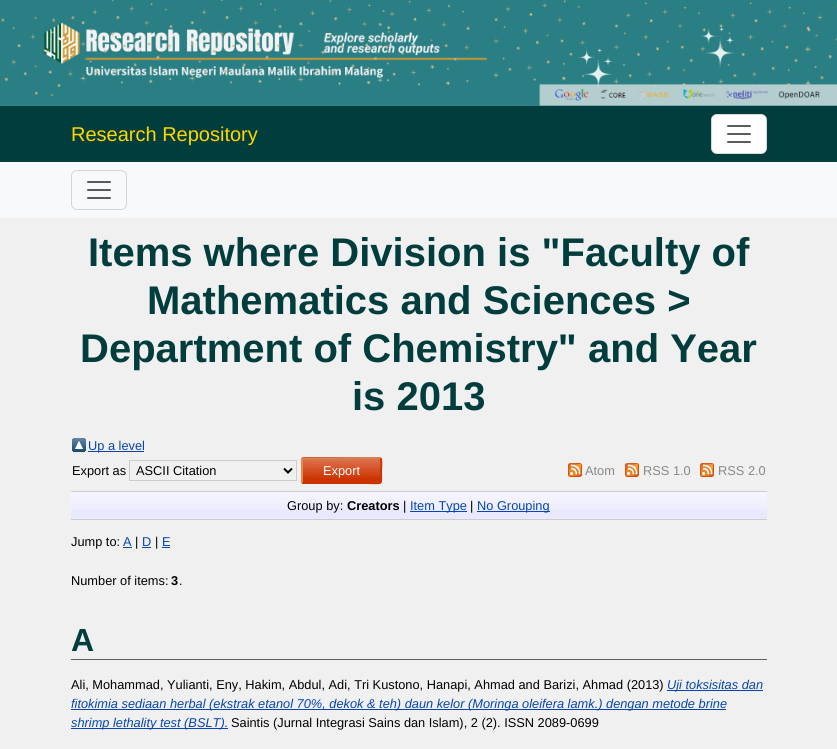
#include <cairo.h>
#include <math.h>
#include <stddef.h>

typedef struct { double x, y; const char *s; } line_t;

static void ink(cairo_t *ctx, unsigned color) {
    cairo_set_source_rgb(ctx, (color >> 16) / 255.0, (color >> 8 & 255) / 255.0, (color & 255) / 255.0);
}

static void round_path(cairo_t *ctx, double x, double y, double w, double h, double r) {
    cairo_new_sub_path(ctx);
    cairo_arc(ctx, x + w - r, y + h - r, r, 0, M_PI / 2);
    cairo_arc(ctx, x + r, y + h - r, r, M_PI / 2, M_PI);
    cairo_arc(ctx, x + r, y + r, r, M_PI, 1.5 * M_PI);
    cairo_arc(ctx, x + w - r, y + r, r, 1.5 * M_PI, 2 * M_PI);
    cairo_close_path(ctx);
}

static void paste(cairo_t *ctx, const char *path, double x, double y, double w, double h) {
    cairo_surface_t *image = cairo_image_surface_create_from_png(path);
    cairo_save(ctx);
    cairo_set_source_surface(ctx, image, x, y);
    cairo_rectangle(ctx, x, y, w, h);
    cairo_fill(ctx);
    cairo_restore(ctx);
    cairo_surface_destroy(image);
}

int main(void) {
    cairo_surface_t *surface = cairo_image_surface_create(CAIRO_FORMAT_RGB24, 837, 749);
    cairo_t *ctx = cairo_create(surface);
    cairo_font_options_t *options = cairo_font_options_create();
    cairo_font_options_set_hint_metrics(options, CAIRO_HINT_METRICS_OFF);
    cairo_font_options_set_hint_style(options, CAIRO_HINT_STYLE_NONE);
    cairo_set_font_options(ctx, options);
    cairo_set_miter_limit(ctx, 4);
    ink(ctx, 0xF0F0F0);
    cairo_paint(ctx);
    paste(ctx, "media/1.png", 0, 0, 837, 106);
    ink(ctx, 0x013D3D);
    cairo_rectangle(ctx, 0, 106, 837, 56);
    cairo_fill(ctx);
    cairo_select_font_face(ctx, "Liberation Sans", CAIRO_FONT_SLANT_NORMAL, CAIRO_FONT_WEIGHT_NORMAL);
    cairo_set_font_size(ctx, 20);
    ink(ctx, 0xFFD700);
    cairo_move_to(ctx, 71, 141);
    cairo_show_text(ctx, "Research Repository");
    ink(ctx, 0xFFFFFF);
    round_path(ctx, 711, 114, 56, 40, 6);
    cairo_fill(ctx);
    round_path(ctx, 711.5, 114.5, 55, 39, 5.5);
    cairo_set_source_rgba(ctx, 0, 0, 0, 0.15);
    cairo_set_line_width(ctx, 1);
    cairo_stroke(ctx);
    paste(ctx, "media/2.png", 727, 125, 24, 18);
    ink(ctx, 0xF8F9FA);
    cairo_rectangle(ctx, 0, 162, 837, 56);
    cairo_fill(ctx);
    round_path(ctx, 71.5, 170.5, 55, 39, 5.5);
    ink(ctx, 0xD3D4D5);
    cairo_stroke(ctx);
    paste(ctx, "media/3.png", 87, 181, 24, 18);
    cairo_select_font_face(ctx, "Liberation Sans", CAIRO_FONT_SLANT_NORMAL, CAIRO_FONT_WEIGHT_BOLD);
    cairo_set_font_size(ctx, 40);
    ink(ctx, 0x013D3D);
    {
        static const line_t items[] = {
            {88, 266, "Items where Division is \"Faculty of"},
            {147, 314, "Mathematics and Sciences >"},
            {80, 362, "Department of Chemistry\" and Year"},
            {352, 410, "is 2013"},
        };
        for (size_t i = 0; i < sizeof items / sizeof *items; i++) {
            cairo_move_to(ctx, items[i].x, items[i].y);
            cairo_show_text(ctx, items[i].s);
        }
    }
    paste(ctx, "media/4.png", 72, 438, 14, 14);
    ink(ctx, 0x0645AD);
    cairo_rectangle(ctx, 88, 451, 56, 1);
    cairo_fill(ctx);
    cairo_select_font_face(ctx, "Liberation Sans", CAIRO_FONT_SLANT_NORMAL, CAIRO_FONT_WEIGHT_NORMAL);
    cairo_set_font_size(ctx, 12.8);
    cairo_move_to(ctx, 88, 450);
    cairo_show_text(ctx, "Up a level");
    ink(ctx, 0x000000);
    cairo_move_to(ctx, 72, 475);
    cairo_show_text(ctx, "Export as");
    cairo_rectangle(ctx, 129.5, 460.5, 167, 20);
    ink(ctx, 0xCCCCCC);
    cairo_stroke(ctx);
    cairo_new_path(ctx);
    cairo_move_to(ctx, 284, 468.5);
    cairo_line_to(ctx, 288, 472.5);
    cairo_line_to(ctx, 292, 468.5);
    ink(ctx, 0x000000);
    cairo_set_line_width(ctx, 2);
    cairo_stroke(ctx);
    cairo_move_to(ctx, 136, 475);
    cairo_show_text(ctx, "ASCII Citation");
    ink(ctx, 0xCC3300);
    round_path(ctx, 301, 457, 81, 27, 3);
    cairo_fill(ctx);
    paste(ctx, "media/5.png", 301, 459, 81, 19);
    cairo_new_path(ctx);
    cairo_move_to(ctx, 302.5, 458.5);
    cairo_line_to(ctx, 366.5, 458);
    cairo_line_to(ctx, 379, 458);
    cairo_line_to(ctx, 380.5, 458.5);
    ink(ctx, 0xD8834D);
    cairo_stroke(ctx);
    cairo_new_path(ctx);
    cairo_move_to(ctx, 380.5, 458.5);
    cairo_curve_to(ctx, 382, 460, 381, 468.5, 381, 470.5);
    cairo_curve_to(ctx, 381, 486, 383.5, 483, 366.5, 483);
    cairo_line_to(ctx, 303, 483);
    cairo_line_to(ctx, 302.5, 482.5);
    ink(ctx, 0xCC3300);
    cairo_stroke(ctx);
    cairo_new_path(ctx);
    cairo_move_to(ctx, 302.5, 482.5);
    cairo_curve_to(ctx, 302, 482, 302, 481.5, 302, 481);
    cairo_line_to(ctx, 302, 460);
    cairo_curve_to(ctx, 302, 459.5, 302, 459, 302.5, 458.5);
    ink(ctx, 0xE48950);
    cairo_stroke(ctx);
    ink(ctx, 0xFFFFFF);
    cairo_move_to(ctx, 323, 475);
    cairo_show_text(ctx, "Export");
    paste(ctx, "media/6.png", 568, 463, 14, 14);
    ink(ctx, 0x888888);
    cairo_move_to(ctx, 585, 475);
    cairo_show_text(ctx, "Atom");
    paste(ctx, "media/6.png", 625, 463, 14, 14);
    cairo_move_to(ctx, 643, 475);
    cairo_show_text(ctx, "RSS 1.0");
    paste(ctx, "media/6.png", 700, 463, 14, 14);
    cairo_move_to(ctx, 718, 475);
    cairo_show_text(ctx, "RSS 2.0");
    ink(ctx, 0xE8E8FF);
    cairo_rectangle(ctx, 71, 492, 696, 27);
    cairo_fill(ctx);
    paste(ctx, "media/7.png", 71, 492, 696, 18);
    ink(ctx, 0xCCCCCC);
    cairo_rectangle(ctx, 71, 491, 696, 1);
    cairo_fill(ctx);
    cairo_rectangle(ctx, 71, 519, 696, 1);
    cairo_fill(ctx);
    ink(ctx, 0x000000);
    cairo_move_to(ctx, 287, 510);
    cairo_show_text(ctx, "Group by:");
    cairo_select_font_face(ctx, "Liberation Sans", CAIRO_FONT_SLANT_NORMAL, CAIRO_FONT_WEIGHT_BOLD);
    cairo_move_to(ctx, 347, 510);
    cairo_show_text(ctx, "Creators");
    cairo_select_font_face(ctx, "Liberation Sans", CAIRO_FONT_SLANT_NORMAL, CAIRO_FONT_WEIGHT_NORMAL);
    cairo_move_to(ctx, 403, 510);
    cairo_show_text(ctx, "|");
    ink(ctx, 0x0645AD);
    cairo_rectangle(ctx, 410, 511, 57, 1);
    cairo_fill(ctx);
    cairo_move_to(ctx, 410, 510);
    cairo_show_text(ctx, "Item Type");
    ink(ctx, 0x000000);
    cairo_move_to(ctx, 470, 510);
    cairo_show_text(ctx, "|");
    ink(ctx, 0x0645AD);
    cairo_rectangle(ctx, 477, 511, 73, 1);
    cairo_fill(ctx);
    cairo_move_to(ctx, 477, 510);
    cairo_show_text(ctx, "No Grouping");
    ink(ctx, 0x000000);
    cairo_move_to(ctx, 71, 546);
    cairo_show_text(ctx, "Jump to:");
    ink(ctx, 0x0645AD);
    cairo_move_to(ctx, 123, 546);
    cairo_show_text(ctx, "A");
    cairo_rectangle(ctx, 123, 547, 9, 1);
    cairo_fill(ctx);
    ink(ctx, 0x000000);
    cairo_move_to(ctx, 135, 546);
    cairo_show_text(ctx, "|");
    ink(ctx, 0x0645AD);
    cairo_move_to(ctx, 142, 546);
    cairo_show_text(ctx, "D");
    cairo_rectangle(ctx, 142, 547, 9, 1);
    cairo_fill(ctx);
    ink(ctx, 0x000000);
    cairo_move_to(ctx, 155, 546);
    cairo_show_text(ctx, "|");
    ink(ctx, 0x0645AD);
    cairo_move_to(ctx, 162, 546);
    cairo_show_text(ctx, "E");
    cairo_rectangle(ctx, 162, 547, 8, 1);
    cairo_fill(ctx);
    ink(ctx, 0x000000);
    cairo_move_to(ctx, 71, 585);
    cairo_show_text(ctx, "Number of items:");
    cairo_select_font_face(ctx, "Liberation Sans", CAIRO_FONT_SLANT_NORMAL, CAIRO_FONT_WEIGHT_BOLD);
    cairo_move_to(ctx, 171, 585);
    cairo_show_text(ctx, "3");
    cairo_select_font_face(ctx, "Liberation Sans", CAIRO_FONT_SLANT_NORMAL, CAIRO_FONT_WEIGHT_NORMAL);
    cairo_move_to(ctx, 179, 585);
    cairo_show_text(ctx, ".");
    ink(ctx, 0x606060);
    cairo_rectangle(ctx, 71, 659, 696, 1);
    cairo_fill(ctx);
    cairo_select_font_face(ctx, "Liberation Sans", CAIRO_FONT_SLANT_NORMAL, CAIRO_FONT_WEIGHT_BOLD);
    cairo_set_font_size(ctx, 32);
    ink(ctx, 0x013D3D);
    cairo_move_to(ctx, 71, 651);
    cairo_show_text(ctx, "A");
    cairo_select_font_face(ctx, "Liberation Sans", CAIRO_FONT_SLANT_NORMAL, CAIRO_FONT_WEIGHT_NORMAL);
    cairo_set_font_size(ctx, 12.8);
    ink(ctx, 0x000000);
    cairo_move_to(ctx, 71, 689);
    cairo_show_text(ctx, "Ali, Mohammad, Yulianti, Eny, Hakim, Abdul, Adi, Tri Kustono, Hanapi, Ahmad and Barizi, Ahmad (2013)");
    ink(ctx, 0x0645AD);
    cairo_rectangle(ctx, 667, 690, 96, 1);
    cairo_fill(ctx);
    cairo_select_font_face(ctx, "Liberation Sans", CAIRO_FONT_SLANT_ITALIC, CAIRO_FONT_WEIGHT_NORMAL);
    cairo_move_to(ctx, 667, 689);
    cairo_show_text(ctx, "Uji toksisitas dan");
    cairo_rectangle(ctx, 71, 709, 655, 1);
    cairo_fill(ctx);
    cairo_move_to(ctx, 71, 708);
    cairo_show_text(ctx, "fitokimia sediaan herbal (ekstrak etanol 70%, dekok & teh) daun kelor (Moringa oleifera lamk.) dengan metode brine");
    cairo_rectangle(ctx, 71, 728, 157, 1);
    cairo_fill(ctx);
    cairo_move_to(ctx, 71, 727);
    cairo_show_text(ctx, "shrimp lethality test (BSLT).");
    cairo_select_font_face(ctx, "Liberation Sans", CAIRO_FONT_SLANT_NORMAL, CAIRO_FONT_WEIGHT_NORMAL);
    ink(ctx, 0x000000);
    cairo_move_to(ctx, 231, 727);
    cairo_show_text(ctx, "Saintis (Jurnal Integrasi Sains dan Islam), 2 (2). ISSN 2089-0699");
    cairo_surface_write_to_png(surface, "image.png");
    cairo_font_options_destroy(options);
    cairo_destroy(ctx);
    cairo_surface_destroy(surface);
    return 0;
}
